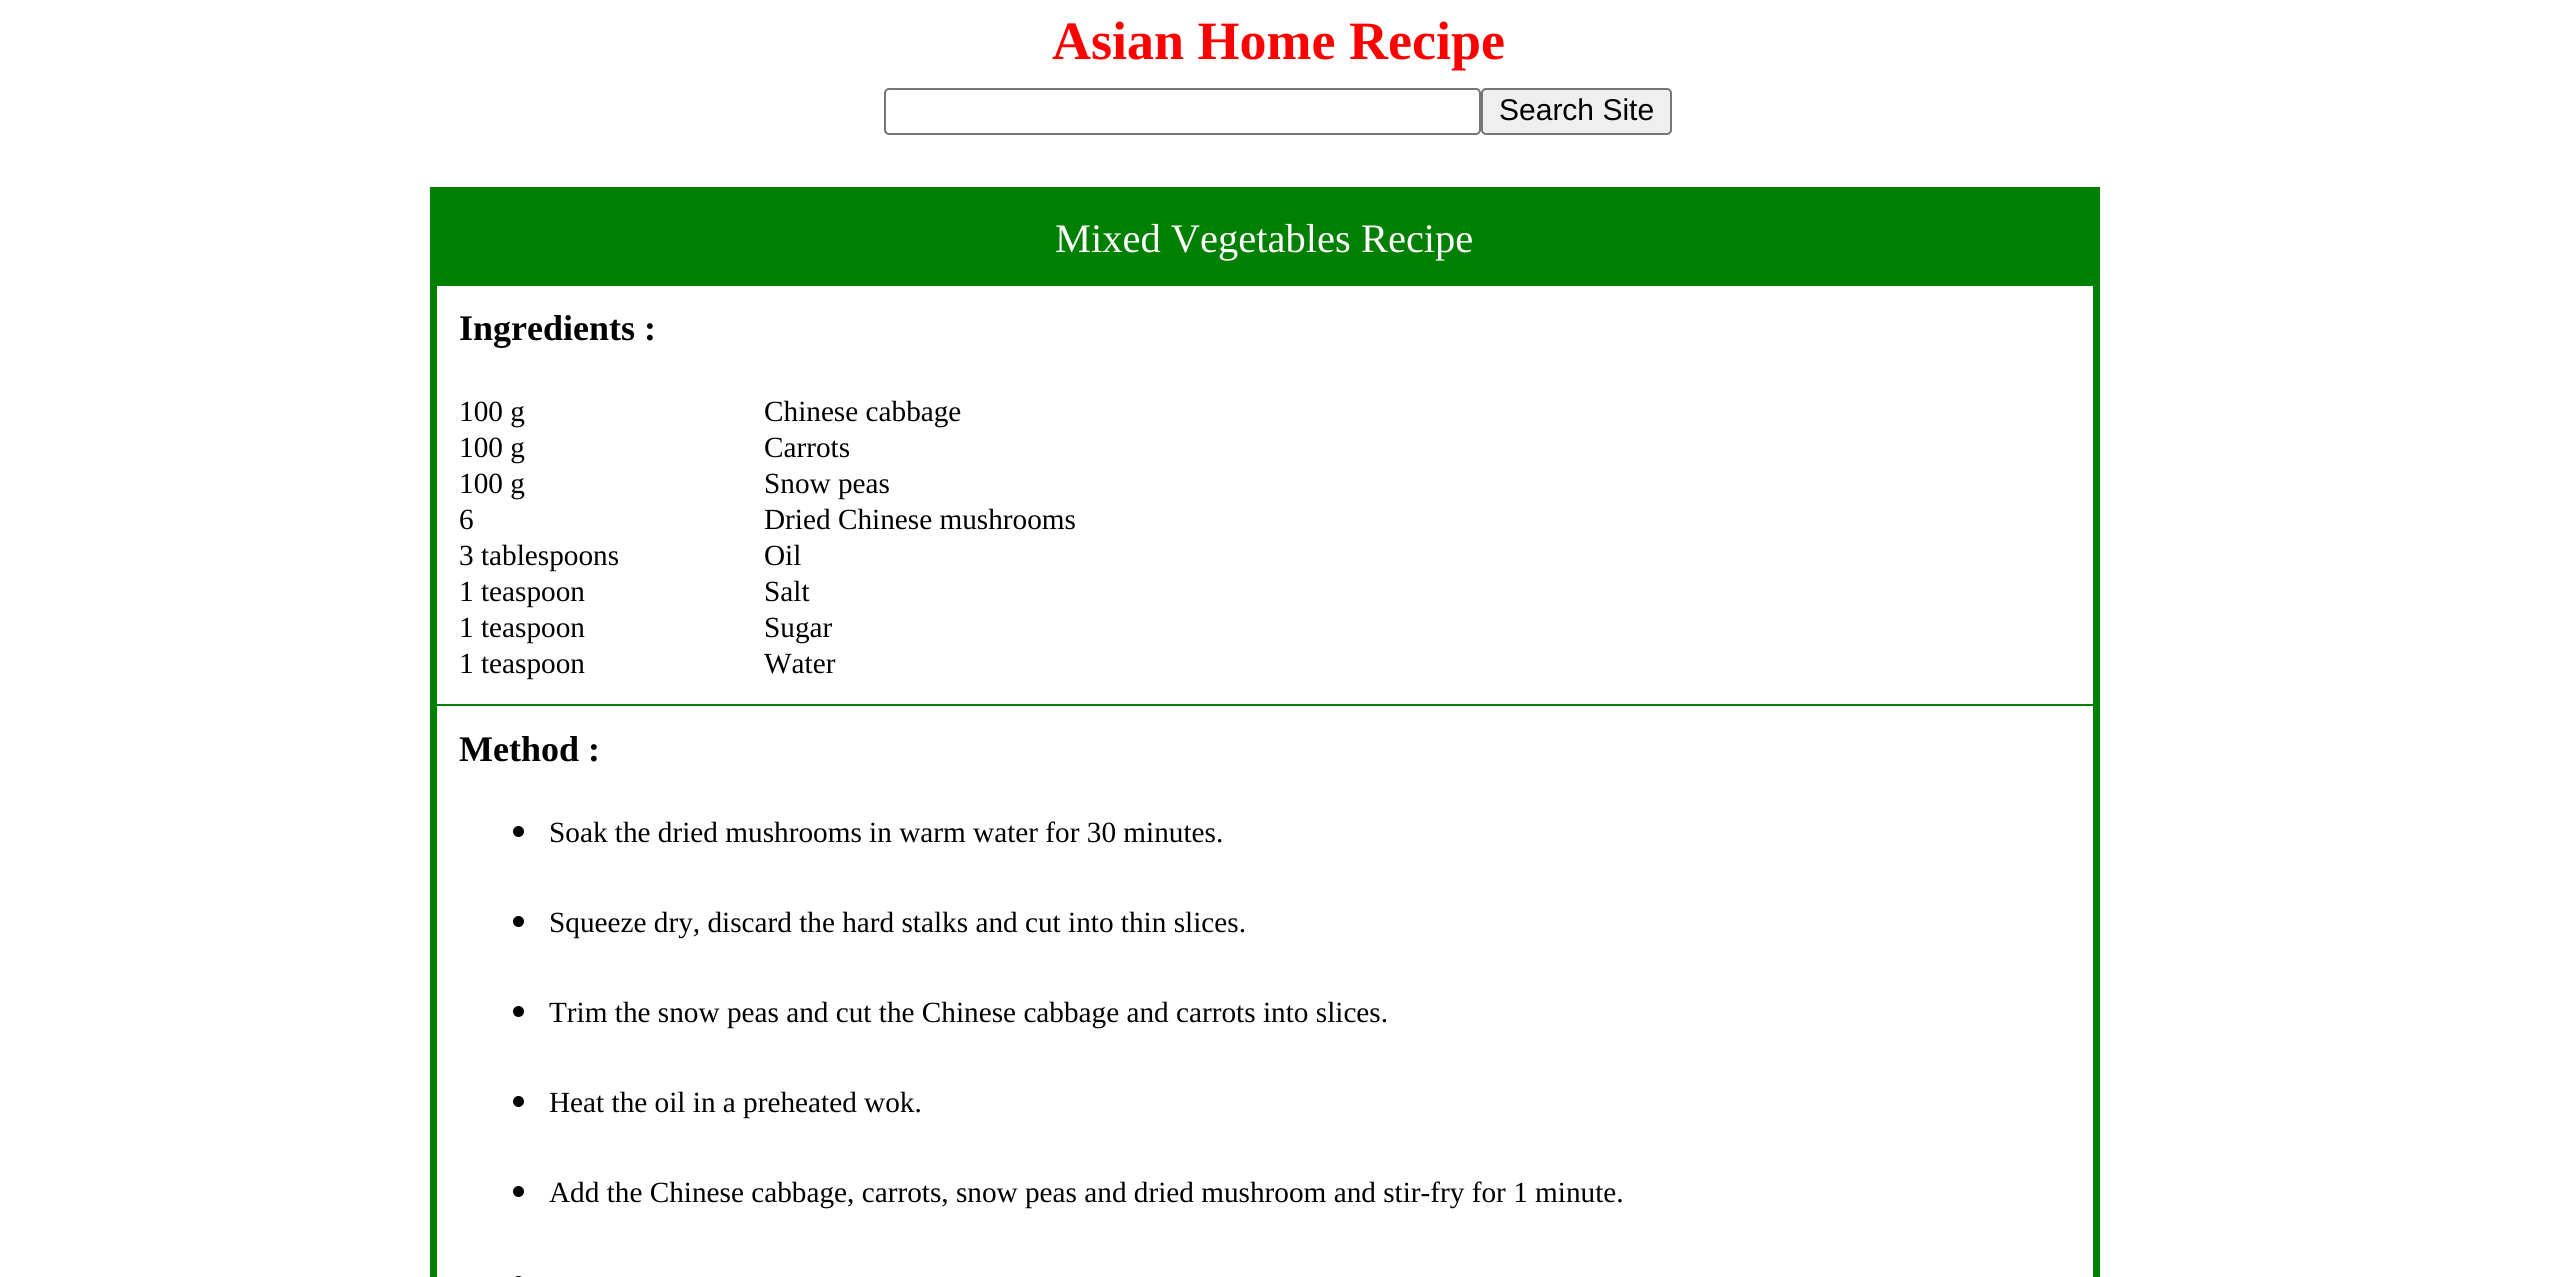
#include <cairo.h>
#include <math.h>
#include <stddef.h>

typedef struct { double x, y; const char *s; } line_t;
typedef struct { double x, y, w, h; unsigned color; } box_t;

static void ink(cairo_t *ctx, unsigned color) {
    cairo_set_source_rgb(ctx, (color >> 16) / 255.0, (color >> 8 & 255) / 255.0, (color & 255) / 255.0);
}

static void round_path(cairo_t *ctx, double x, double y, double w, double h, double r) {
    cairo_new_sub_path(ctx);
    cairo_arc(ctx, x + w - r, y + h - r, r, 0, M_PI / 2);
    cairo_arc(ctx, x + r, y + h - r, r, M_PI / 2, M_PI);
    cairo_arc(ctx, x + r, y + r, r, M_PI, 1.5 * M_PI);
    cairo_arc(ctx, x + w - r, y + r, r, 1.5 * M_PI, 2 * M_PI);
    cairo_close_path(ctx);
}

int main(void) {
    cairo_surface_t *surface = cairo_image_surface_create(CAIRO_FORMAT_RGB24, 2554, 1277);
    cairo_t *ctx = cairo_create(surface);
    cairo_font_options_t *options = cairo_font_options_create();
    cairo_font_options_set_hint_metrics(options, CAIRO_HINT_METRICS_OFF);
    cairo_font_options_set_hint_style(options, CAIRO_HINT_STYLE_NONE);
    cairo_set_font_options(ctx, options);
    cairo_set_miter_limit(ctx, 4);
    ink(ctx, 0xFFFFFF);
    cairo_paint(ctx);
    cairo_select_font_face(ctx, "Liberation Serif", CAIRO_FONT_SLANT_NORMAL, CAIRO_FONT_WEIGHT_BOLD);
    cairo_set_font_size(ctx, 54);
    ink(ctx, 0xFF0000);
    cairo_move_to(ctx, 1052, 59);
    cairo_show_text(ctx, "Asian Home Recipe");
    round_path(ctx, 885, 89, 595, 45, 4);
    ink(ctx, 0x767676);
    cairo_stroke(ctx);
    ink(ctx, 0xEFEFEF);
    round_path(ctx, 1482, 89, 189, 45, 4);
    cairo_fill_preserve(ctx);
    ink(ctx, 0x767676);
    cairo_stroke(ctx);
    cairo_select_font_face(ctx, "Liberation Sans", CAIRO_FONT_SLANT_NORMAL, CAIRO_FONT_WEIGHT_NORMAL);
    cairo_set_font_size(ctx, 30);
    ink(ctx, 0x000000);
    cairo_move_to(ctx, 1499, 120);
    cairo_show_text(ctx, "Search Site");
    {
        static const box_t items[] = {
            {430, 187, 1669, 7, 0x008000},
            {432, 704, 1665, 2, 0x008000},
            {2093, 187, 7, 1090, 0x008000},
            {430, 187, 7, 1090, 0x008000},
            {437, 194, 1656, 92, 0x008000},
        };
        for (size_t i = 0; i < sizeof items / sizeof *items; i++) {
            ink(ctx, items[i].color);
            cairo_rectangle(ctx, items[i].x, items[i].y, items[i].w, items[i].h);
            cairo_fill(ctx);
        }
    }
    cairo_select_font_face(ctx, "Liberation Serif", CAIRO_FONT_SLANT_NORMAL, CAIRO_FONT_WEIGHT_NORMAL);
    cairo_set_font_size(ctx, 40.5);
    ink(ctx, 0xFFFFFF);
    cairo_move_to(ctx, 1055, 252);
    cairo_show_text(ctx, "Mixed Vegetables Recipe");
    cairo_select_font_face(ctx, "Liberation Serif", CAIRO_FONT_SLANT_NORMAL, CAIRO_FONT_WEIGHT_BOLD);
    cairo_set_font_size(ctx, 36);
    ink(ctx, 0x000000);
    cairo_move_to(ctx, 459, 340);
    cairo_show_text(ctx, "Ingredients :");
    cairo_select_font_face(ctx, "Liberation Serif", CAIRO_FONT_SLANT_NORMAL, CAIRO_FONT_WEIGHT_NORMAL);
    cairo_set_font_size(ctx, 29.25);
    {
        static const line_t items[] = {
            {459, 421, "100 g"},
            {459, 457, "100 g"},
            {459, 493, "100 g"},
            {459, 529, "6"},
            {459, 565, "3 tablespoons"},
            {459, 601, "1 teaspoon"},
            {459, 637, "1 teaspoon"},
            {459, 673, "1 teaspoon"},
            {764, 421, "Chinese cabbage"},
            {764, 457, "Carrots"},
            {764, 493, "Snow peas"},
            {764, 529, "Dried Chinese mushrooms"},
            {764, 565, "Oil"},
            {764, 601, "Salt"},
            {764, 637, "Sugar"},
            {764, 673, "Water"},
        };
        for (size_t i = 0; i < sizeof items / sizeof *items; i++) {
            cairo_move_to(ctx, items[i].x, items[i].y);
            cairo_show_text(ctx, items[i].s);
        }
    }
    cairo_select_font_face(ctx, "Liberation Serif", CAIRO_FONT_SLANT_NORMAL, CAIRO_FONT_WEIGHT_BOLD);
    cairo_set_font_size(ctx, 36);
    cairo_move_to(ctx, 459, 761);
    cairo_show_text(ctx, "Method :");
    cairo_new_path(ctx);
    cairo_arc(ctx, 518.5, 831.5, 5.5, 0, 2 * M_PI);
    cairo_fill(ctx);
    cairo_select_font_face(ctx, "Liberation Serif", CAIRO_FONT_SLANT_NORMAL, CAIRO_FONT_WEIGHT_NORMAL);
    cairo_set_font_size(ctx, 29.25);
    cairo_move_to(ctx, 549, 842);
    cairo_show_text(ctx, "Soak the dried mushrooms in warm water for 30 minutes.");
    cairo_new_path(ctx);
    cairo_arc(ctx, 518.5, 921.5, 5.5, 0, 2 * M_PI);
    cairo_fill(ctx);
    cairo_move_to(ctx, 549, 932);
    cairo_show_text(ctx, "Squeeze dry, discard the hard stalks and cut into thin slices.");
    cairo_new_path(ctx);
    cairo_arc(ctx, 518.5, 1011.5, 5.5, 0, 2 * M_PI);
    cairo_fill(ctx);
    cairo_move_to(ctx, 549, 1022);
    cairo_show_text(ctx, "Trim the snow peas and cut the Chinese cabbage and carrots into slices.");
    cairo_new_path(ctx);
    cairo_arc(ctx, 518.5, 1101.5, 5.5, 0, 2 * M_PI);
    cairo_fill(ctx);
    cairo_move_to(ctx, 549, 1112);
    cairo_show_text(ctx, "Heat the oil in a preheated wok.");
    cairo_new_path(ctx);
    cairo_arc(ctx, 518.5, 1191.5, 5.5, 0, 2 * M_PI);
    cairo_fill(ctx);
    cairo_move_to(ctx, 549, 1202);
    cairo_show_text(ctx, "Add the Chinese cabbage, carrots, snow peas and dried mushroom and stir-fry for 1 minute.");
    round_path(ctx, 513, 1276, 11, 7, 5.5);
    cairo_fill(ctx);
    cairo_surface_write_to_png(surface, "image.png");
    cairo_font_options_destroy(options);
    cairo_destroy(ctx);
    cairo_surface_destroy(surface);
    return 0;
}
